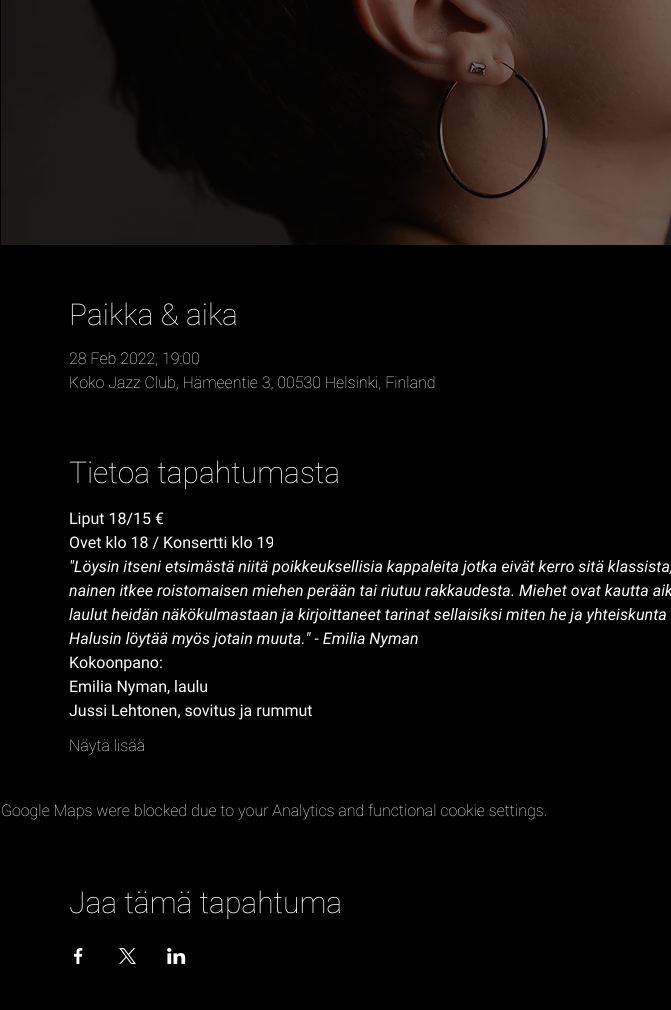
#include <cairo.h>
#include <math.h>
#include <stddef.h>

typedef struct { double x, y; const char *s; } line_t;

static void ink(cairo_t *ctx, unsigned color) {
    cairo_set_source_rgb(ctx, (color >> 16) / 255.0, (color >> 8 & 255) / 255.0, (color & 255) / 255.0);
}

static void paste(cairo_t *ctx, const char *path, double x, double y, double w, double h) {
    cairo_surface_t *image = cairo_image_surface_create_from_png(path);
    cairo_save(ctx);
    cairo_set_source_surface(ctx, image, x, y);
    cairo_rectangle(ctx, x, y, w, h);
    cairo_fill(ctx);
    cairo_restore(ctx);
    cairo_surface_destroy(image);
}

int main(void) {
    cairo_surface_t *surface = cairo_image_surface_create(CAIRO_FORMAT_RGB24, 671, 1010);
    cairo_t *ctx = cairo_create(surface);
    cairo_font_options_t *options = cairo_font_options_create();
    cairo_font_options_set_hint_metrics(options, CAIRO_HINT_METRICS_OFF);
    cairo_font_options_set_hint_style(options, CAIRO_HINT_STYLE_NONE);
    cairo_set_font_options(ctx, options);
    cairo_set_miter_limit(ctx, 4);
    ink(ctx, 0x000000);
    cairo_paint(ctx);
    paste(ctx, "media/1.png", 1, 0, 670, 245);
    cairo_select_font_face(ctx, "Roboto Thin", CAIRO_FONT_SLANT_NORMAL, CAIRO_FONT_WEIGHT_NORMAL);
    cairo_set_font_size(ctx, 30);
    ink(ctx, 0xFFFFFF);
    cairo_move_to(ctx, 69, 325);
    cairo_show_text(ctx, "Paikka & aika");
    cairo_set_font_size(ctx, 16);
    cairo_move_to(ctx, 69, 364);
    cairo_show_text(ctx, "28 Feb 2022, 19:00");
    cairo_move_to(ctx, 69, 388);
    cairo_show_text(ctx, "Koko Jazz Club, Hämeentie 3, 00530 Helsinki, Finland");
    cairo_set_font_size(ctx, 30);
    cairo_move_to(ctx, 69, 483);
    cairo_show_text(ctx, "Tietoa tapahtumasta");
    cairo_select_font_face(ctx, "Roboto", CAIRO_FONT_SLANT_NORMAL, CAIRO_FONT_WEIGHT_NORMAL);
    cairo_set_font_size(ctx, 16);
    cairo_move_to(ctx, 69, 524);
    cairo_show_text(ctx, "Liput 18/15 €");
    cairo_move_to(ctx, 69, 548);
    cairo_show_text(ctx, "Ovet klo 18 / Konsertti klo 19");
    cairo_select_font_face(ctx, "Roboto", CAIRO_FONT_SLANT_ITALIC, CAIRO_FONT_WEIGHT_NORMAL);
    {
        static const line_t items[] = {
            {69, 572, "\"Löysin itseni etsimästä niitä poikkeuksellisia kappaleita jotka eivät kerro sitä klassista,"},
            {69, 596, "nainen itkee roistomaisen miehen perään tai riutuu rakkaudesta. Miehet ovat kautta aik"},
            {69, 620, "laulut heidän näkökulmastaan ja kirjoittaneet tarinat sellaisiksi miten he ja yhteiskunta"},
            {69, 644, "Halusin löytää myös jotain muuta.\" - Emilia Nyman"},
        };
        for (size_t i = 0; i < sizeof items / sizeof *items; i++) {
            cairo_move_to(ctx, items[i].x, items[i].y);
            cairo_show_text(ctx, items[i].s);
        }
    }
    cairo_select_font_face(ctx, "Roboto", CAIRO_FONT_SLANT_NORMAL, CAIRO_FONT_WEIGHT_NORMAL);
    {
        static const line_t items[] = {
            {69, 668, "Kokoonpano:"},
            {69, 692, "Emilia Nyman, laulu"},
            {69, 716, "Jussi Lehtonen, sovitus ja rummut"},
        };
        for (size_t i = 0; i < sizeof items / sizeof *items; i++) {
            cairo_move_to(ctx, items[i].x, items[i].y);
            cairo_show_text(ctx, items[i].s);
        }
    }
    cairo_select_font_face(ctx, "Roboto Thin", CAIRO_FONT_SLANT_NORMAL, CAIRO_FONT_WEIGHT_NORMAL);
    cairo_move_to(ctx, 69, 751);
    cairo_show_text(ctx, "Näytä lisää");
    cairo_move_to(ctx, 1, 816);
    cairo_show_text(ctx, "Google Maps were blocked due to your Analytics and functional cookie settings.");
    cairo_set_font_size(ctx, 30);
    cairo_move_to(ctx, 69, 913);
    cairo_show_text(ctx, "Jaa tämä tapahtuma");
    paste(ctx, "media/2.png", 74, 948, 9, 16);
    paste(ctx, "media/3.png", 119, 948, 17, 16);
    paste(ctx, "media/4.png", 167, 948, 19, 16);
    cairo_surface_write_to_png(surface, "image.png");
    cairo_font_options_destroy(options);
    cairo_destroy(ctx);
    cairo_surface_destroy(surface);
    return 0;
}
